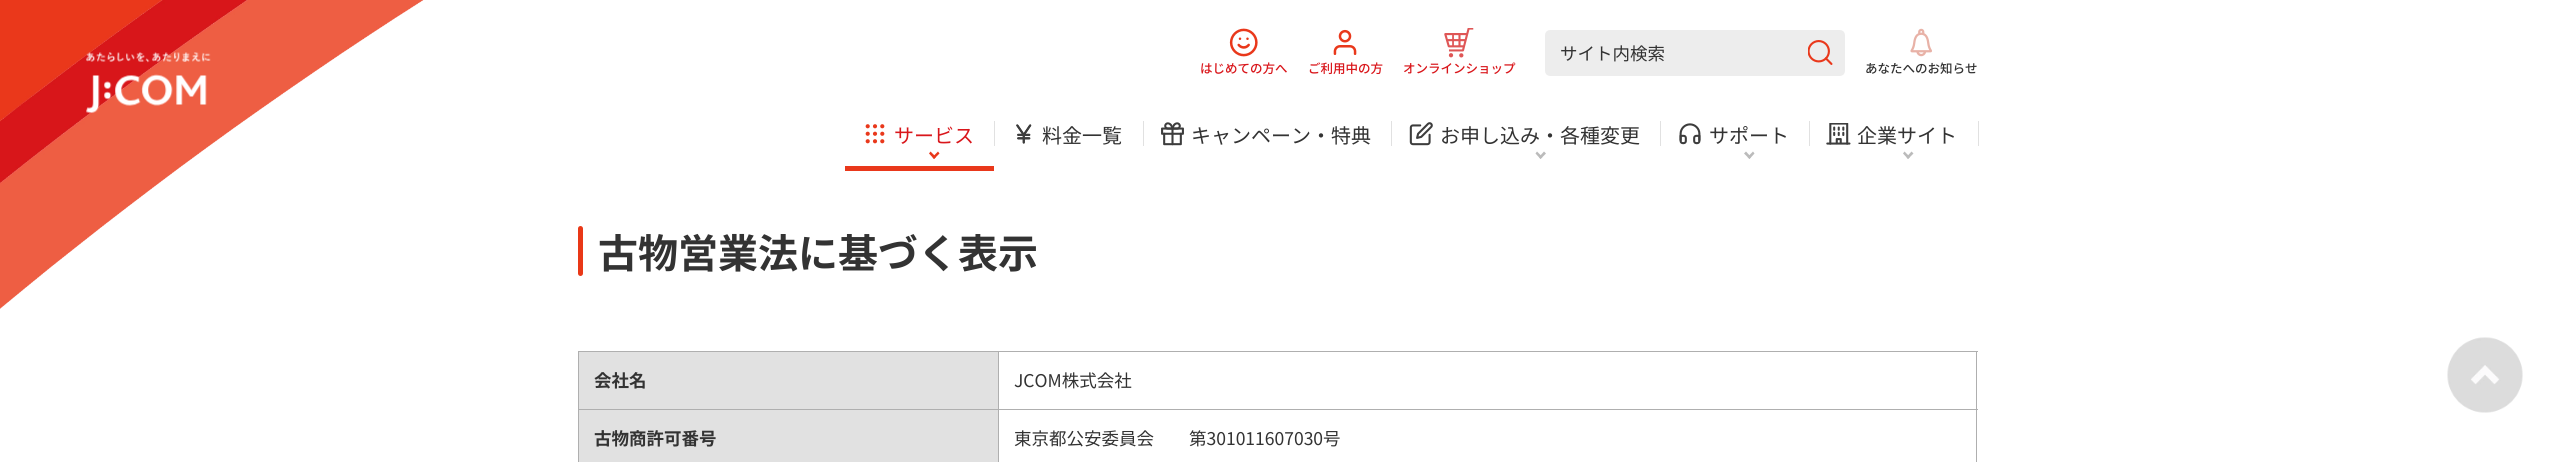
#include <cairo.h>
#include <math.h>
#include <stddef.h>

typedef struct { double x, y, w, h; unsigned color; } box_t;

static void ink(cairo_t *ctx, unsigned color) {
    cairo_set_source_rgb(ctx, (color >> 16) / 255.0, (color >> 8 & 255) / 255.0, (color & 255) / 255.0);
}

static void round_path(cairo_t *ctx, double x, double y, double w, double h, double r) {
    cairo_new_sub_path(ctx);
    cairo_arc(ctx, x + w - r, y + h - r, r, 0, M_PI / 2);
    cairo_arc(ctx, x + r, y + h - r, r, M_PI / 2, M_PI);
    cairo_arc(ctx, x + r, y + r, r, M_PI, 1.5 * M_PI);
    cairo_arc(ctx, x + w - r, y + r, r, 1.5 * M_PI, 2 * M_PI);
    cairo_close_path(ctx);
}

static void paste(cairo_t *ctx, const char *path, double x, double y, double w, double h) {
    cairo_surface_t *image = cairo_image_surface_create_from_png(path);
    cairo_save(ctx);
    cairo_set_source_surface(ctx, image, x, y);
    cairo_rectangle(ctx, x, y, w, h);
    cairo_fill(ctx);
    cairo_restore(ctx);
    cairo_surface_destroy(image);
}

int main(void) {
    cairo_surface_t *surface = cairo_image_surface_create(CAIRO_FORMAT_RGB24, 2555, 462);
    cairo_t *ctx = cairo_create(surface);
    cairo_font_options_t *options = cairo_font_options_create();
    cairo_font_options_set_hint_metrics(options, CAIRO_HINT_METRICS_OFF);
    cairo_font_options_set_hint_style(options, CAIRO_HINT_STYLE_NONE);
    cairo_set_font_options(ctx, options);
    cairo_set_miter_limit(ctx, 4);
    ink(ctx, 0xFFFFFF);
    cairo_paint(ctx);
    paste(ctx, "media/1.png", 0, 0, 424, 309);
    paste(ctx, "media/2.png", 86, 52, 125, 61);
    ink(ctx, 0xEDEDED);
    round_path(ctx, 1546.5, 31.5, 297, 43, 3.5);
    cairo_fill_preserve(ctx);
    cairo_set_line_width(ctx, 3);
    cairo_stroke(ctx);
    cairo_select_font_face(ctx, "Noto Sans JP", CAIRO_FONT_SLANT_NORMAL, CAIRO_FONT_WEIGHT_NORMAL);
    cairo_set_font_size(ctx, 17.5);
    ink(ctx, 0x333333);
    cairo_move_to(ctx, 1560, 60);
    cairo_show_text(ctx, "サイト内検索");
    paste(ctx, "media/3.png", 1808, 40, 25, 25);
    paste(ctx, "media/4.png", 1229, 28, 29, 29);
    cairo_select_font_face(ctx, "Noto Sans JP Medium", CAIRO_FONT_SLANT_NORMAL, CAIRO_FONT_WEIGHT_NORMAL);
    cairo_set_font_size(ctx, 12.5);
    ink(ctx, 0xD9161B);
    cairo_move_to(ctx, 1200, 73);
    cairo_show_text(ctx, "はじめての方へ");
    paste(ctx, "media/5.png", 1333, 29, 24, 26);
    cairo_move_to(ctx, 1308, 73);
    cairo_show_text(ctx, "ご利用中の方");
    paste(ctx, "media/6.png", 1444, 28, 30, 30);
    cairo_move_to(ctx, 1403, 73);
    cairo_show_text(ctx, "オンラインショップ");
    paste(ctx, "media/7.png", 1910, 28, 22, 29);
    ink(ctx, 0x333333);
    cairo_move_to(ctx, 1865, 73);
    cairo_show_text(ctx, "あなたへのお知らせ");
    paste(ctx, "media/8.png", 865, 124, 20, 20);
    cairo_select_font_face(ctx, "Noto Sans JP", CAIRO_FONT_SLANT_NORMAL, CAIRO_FONT_WEIGHT_NORMAL);
    cairo_set_font_size(ctx, 20);
    ink(ctx, 0xD9161B);
    cairo_move_to(ctx, 894, 143);
    cairo_show_text(ctx, "サービス");
    ink(ctx, 0xE9381B);
    cairo_new_path(ctx);
    cairo_move_to(ctx, 939.5, 153.5);
    cairo_line_to(ctx, 934, 159);
    cairo_line_to(ctx, 932.5, 157);
    cairo_line_to(ctx, 938, 151.5);
    cairo_close_path(ctx);
    cairo_fill(ctx);
    cairo_new_path(ctx);
    cairo_move_to(ctx, 936, 157);
    cairo_line_to(ctx, 934, 159);
    cairo_line_to(ctx, 929, 153.5);
    cairo_line_to(ctx, 930.5, 151.5);
    cairo_close_path(ctx);
    cairo_fill(ctx);
    ink(ctx, 0xE1E1E1);
    cairo_rectangle(ctx, 994, 121, 1, 25);
    cairo_fill(ctx);
    ink(ctx, 0xE9381B);
    cairo_rectangle(ctx, 845, 166, 149, 5);
    cairo_fill(ctx);
    paste(ctx, "media/9.png", 1016, 124, 16, 20);
    ink(ctx, 0x333333);
    cairo_move_to(ctx, 1042, 143);
    cairo_show_text(ctx, "料金一覧");
    ink(ctx, 0xE1E1E1);
    cairo_rectangle(ctx, 1143, 121, 1, 25);
    cairo_fill(ctx);
    paste(ctx, "media/10.png", 1161, 122, 23, 24);
    ink(ctx, 0x333333);
    cairo_move_to(ctx, 1191, 143);
    cairo_show_text(ctx, "キャンペーン・特典");
    ink(ctx, 0xE1E1E1);
    cairo_rectangle(ctx, 1391, 121, 1, 25);
    cairo_fill(ctx);
    paste(ctx, "media/11.png", 1409, 122, 24, 24);
    ink(ctx, 0x333333);
    cairo_move_to(ctx, 1440, 143);
    cairo_show_text(ctx, "お申し込み・各種変更");
    ink(ctx, 0xBBBBBB);
    cairo_new_path(ctx);
    cairo_move_to(ctx, 1546, 153.5);
    cairo_line_to(ctx, 1540.5, 159);
    cairo_line_to(ctx, 1539, 157);
    cairo_line_to(ctx, 1544, 151.5);
    cairo_close_path(ctx);
    cairo_fill(ctx);
    cairo_new_path(ctx);
    cairo_move_to(ctx, 1542.5, 157);
    cairo_line_to(ctx, 1540.5, 159);
    cairo_line_to(ctx, 1535.5, 153.5);
    cairo_line_to(ctx, 1537, 151.5);
    cairo_close_path(ctx);
    cairo_fill(ctx);
    ink(ctx, 0xE1E1E1);
    cairo_rectangle(ctx, 1660, 121, 1, 25);
    cairo_fill(ctx);
    paste(ctx, "media/12.png", 1679, 123, 22, 22);
    ink(ctx, 0x333333);
    cairo_move_to(ctx, 1709, 143);
    cairo_show_text(ctx, "サポート");
    ink(ctx, 0xBBBBBB);
    cairo_new_path(ctx);
    cairo_move_to(ctx, 1754.5, 153.5);
    cairo_line_to(ctx, 1749.5, 159);
    cairo_line_to(ctx, 1747.5, 157);
    cairo_line_to(ctx, 1753, 151.5);
    cairo_close_path(ctx);
    cairo_fill(ctx);
    cairo_new_path(ctx);
    cairo_move_to(ctx, 1751, 157);
    cairo_line_to(ctx, 1749.5, 159);
    cairo_line_to(ctx, 1744, 153.5);
    cairo_line_to(ctx, 1746, 151.5);
    cairo_close_path(ctx);
    cairo_fill(ctx);
    ink(ctx, 0xE1E1E1);
    cairo_rectangle(ctx, 1809, 121, 1, 25);
    cairo_fill(ctx);
    paste(ctx, "media/13.png", 1826, 123, 25, 22);
    ink(ctx, 0x333333);
    cairo_move_to(ctx, 1857, 143);
    cairo_show_text(ctx, "企業サイト");
    ink(ctx, 0xBBBBBB);
    cairo_new_path(ctx);
    cairo_move_to(ctx, 1913.5, 153.5);
    cairo_line_to(ctx, 1908, 159);
    cairo_line_to(ctx, 1906.5, 157);
    cairo_line_to(ctx, 1911.5, 151.5);
    cairo_close_path(ctx);
    cairo_fill(ctx);
    cairo_new_path(ctx);
    cairo_move_to(ctx, 1910, 157);
    cairo_line_to(ctx, 1908, 159);
    cairo_line_to(ctx, 1903, 153.5);
    cairo_line_to(ctx, 1904.5, 151.5);
    cairo_close_path(ctx);
    cairo_fill(ctx);
    ink(ctx, 0xE1E1E1);
    cairo_rectangle(ctx, 1978, 121, 1, 25);
    cairo_fill(ctx);
    ink(ctx, 0xE93817);
    round_path(ctx, 578, 226, 5, 50, 2.5);
    cairo_fill(ctx);
    cairo_select_font_face(ctx, "Noto Sans JP", CAIRO_FONT_SLANT_NORMAL, CAIRO_FONT_WEIGHT_BOLD);
    cairo_set_font_size(ctx, 40);
    ink(ctx, 0x333333);
    cairo_move_to(ctx, 598, 268);
    cairo_show_text(ctx, "古物営業法に基づく表示");
    {
        static const box_t items[] = {
            {579, 352, 419, 57, 0xE1E1E1},
            {998, 351, 980, 1, 0xAFAFAF},
            {998, 409, 980, 1, 0xAFAFAF},
            {998, 409, 1, 53, 0xAFAFAF},
            {578, 409, 421, 1, 0xAFAFAF},
            {998, 351, 1, 59, 0xAFAFAF},
            {578, 351, 421, 1, 0xAFAFAF},
            {578, 409, 1, 53, 0xAFAFAF},
            {578, 351, 1, 59, 0xAFAFAF},
        };
        for (size_t i = 0; i < sizeof items / sizeof *items; i++) {
            ink(ctx, items[i].color);
            cairo_rectangle(ctx, items[i].x, items[i].y, items[i].w, items[i].h);
            cairo_fill(ctx);
        }
    }
    cairo_set_font_size(ctx, 17.5);
    ink(ctx, 0x333333);
    cairo_move_to(ctx, 594, 387);
    cairo_show_text(ctx, "会社名");
    ink(ctx, 0xAFAFAF);
    cairo_rectangle(ctx, 1976, 409, 1, 53);
    cairo_fill(ctx);
    cairo_rectangle(ctx, 1976, 351, 1, 59);
    cairo_fill(ctx);
    cairo_select_font_face(ctx, "Noto Sans JP", CAIRO_FONT_SLANT_NORMAL, CAIRO_FONT_WEIGHT_NORMAL);
    ink(ctx, 0x333333);
    cairo_move_to(ctx, 1014, 387);
    cairo_show_text(ctx, "JCOM株式会社");
    ink(ctx, 0xE1E1E1);
    cairo_rectangle(ctx, 579, 410, 419, 52);
    cairo_fill(ctx);
    cairo_select_font_face(ctx, "Noto Sans JP", CAIRO_FONT_SLANT_NORMAL, CAIRO_FONT_WEIGHT_BOLD);
    ink(ctx, 0x333333);
    cairo_move_to(ctx, 594, 445);
    cairo_show_text(ctx, "古物商許可番号");
    cairo_select_font_face(ctx, "Noto Sans JP", CAIRO_FONT_SLANT_NORMAL, CAIRO_FONT_WEIGHT_NORMAL);
    cairo_move_to(ctx, 1014, 445);
    cairo_show_text(ctx, "東京都公安委員会　　第301011607030号");
    paste(ctx, "media/14.png", 2447, 337, 76, 76);
    cairo_surface_write_to_png(surface, "image.png");
    cairo_font_options_destroy(options);
    cairo_destroy(ctx);
    cairo_surface_destroy(surface);
    return 0;
}
